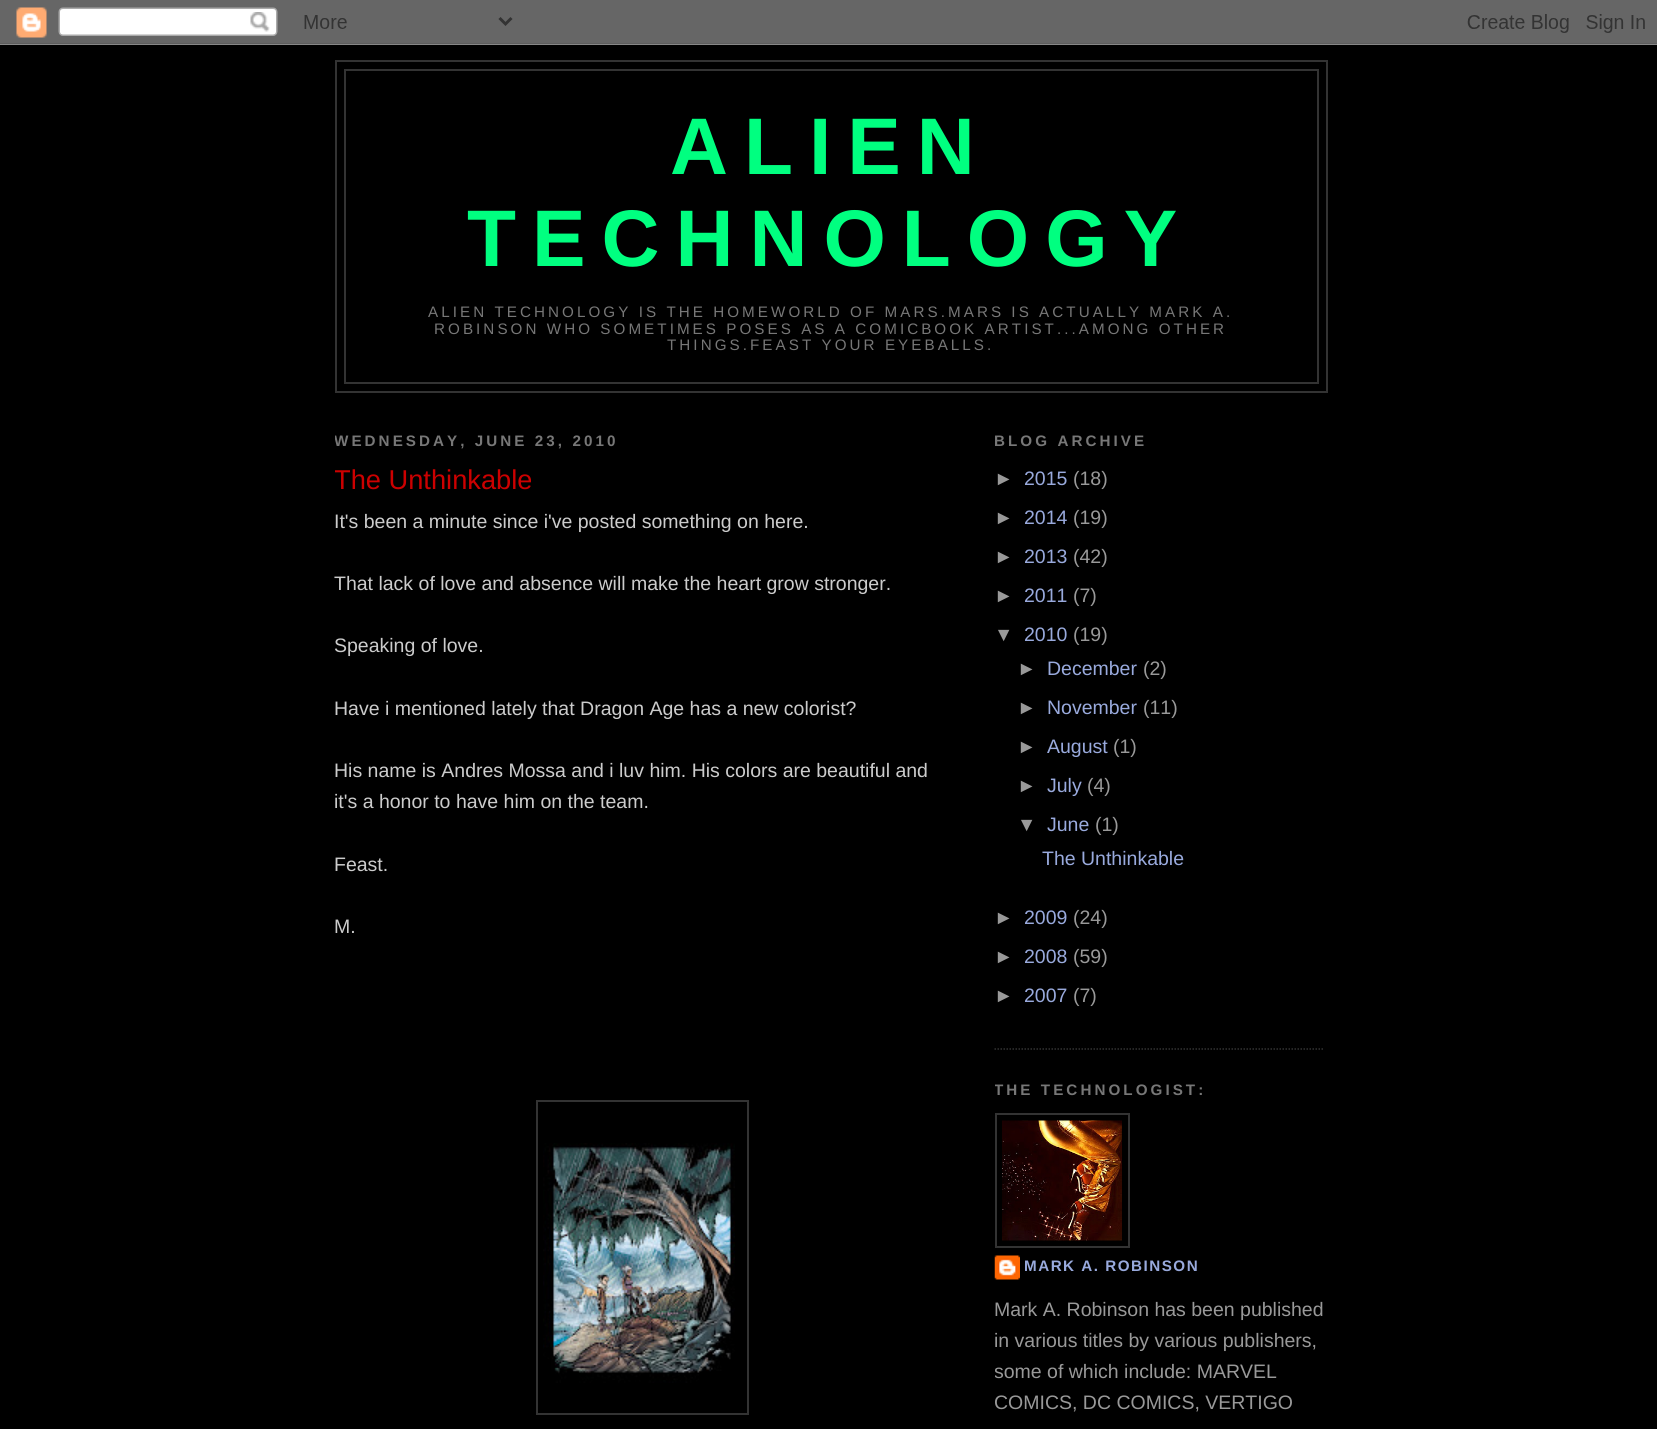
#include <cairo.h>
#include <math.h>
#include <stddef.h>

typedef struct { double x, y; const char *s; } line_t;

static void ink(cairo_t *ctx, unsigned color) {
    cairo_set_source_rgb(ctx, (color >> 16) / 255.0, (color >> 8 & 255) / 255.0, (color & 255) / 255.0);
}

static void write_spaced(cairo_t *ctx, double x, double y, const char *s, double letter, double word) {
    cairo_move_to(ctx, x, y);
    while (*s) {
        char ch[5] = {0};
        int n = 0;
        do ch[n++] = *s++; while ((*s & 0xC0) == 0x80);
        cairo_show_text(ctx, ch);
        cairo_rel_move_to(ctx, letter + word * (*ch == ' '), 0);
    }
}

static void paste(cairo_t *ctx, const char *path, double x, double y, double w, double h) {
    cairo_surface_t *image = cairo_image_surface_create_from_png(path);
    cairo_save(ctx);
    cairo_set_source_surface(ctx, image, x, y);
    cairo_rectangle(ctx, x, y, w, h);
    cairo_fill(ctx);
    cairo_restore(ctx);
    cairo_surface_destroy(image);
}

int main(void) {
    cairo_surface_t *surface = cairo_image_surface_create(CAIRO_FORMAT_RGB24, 1657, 1429);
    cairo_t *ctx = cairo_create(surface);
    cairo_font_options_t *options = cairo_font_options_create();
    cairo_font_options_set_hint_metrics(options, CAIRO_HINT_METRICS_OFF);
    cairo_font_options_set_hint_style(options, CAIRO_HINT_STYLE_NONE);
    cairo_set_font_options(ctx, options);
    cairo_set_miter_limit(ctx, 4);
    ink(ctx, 0x000000);
    cairo_paint(ctx);
    paste(ctx, "media/1.png", 0, 0, 1657, 45);
    cairo_rectangle(ctx, 336, 61, 991, 331);
    ink(ctx, 0x333333);
    cairo_stroke(ctx);
    cairo_rectangle(ctx, 345, 70, 973, 313);
    cairo_stroke(ctx);
    cairo_select_font_face(ctx, "Liberation Sans", CAIRO_FONT_SLANT_NORMAL, CAIRO_FONT_WEIGHT_BOLD);
    cairo_set_font_size(ctx, 80.25);
    ink(ctx, 0x00FF80);
    write_spaced(ctx, 670, 174, "ALIEN", 16, 0);
    write_spaced(ctx, 467, 266, "TECHNOLOGY", 16, 0);
    cairo_select_font_face(ctx, "Liberation Sans", CAIRO_FONT_SLANT_NORMAL, CAIRO_FONT_WEIGHT_NORMAL);
    cairo_set_font_size(ctx, 15.2);
    ink(ctx, 0x777777);
    {
        static const line_t items[] = {
            {428, 317, "ALIEN TECHNOLOGY IS THE HOMEWORLD OF MARS.MARS IS ACTUALLY MARK A."},
            {434, 334, "ROBINSON WHO SOMETIMES POSES AS A COMICBOOK ARTIST...AMONG OTHER"},
            {667, 350, "THINGS.FEAST YOUR EYEBALLS."},
        };
        for (size_t i = 0; i < sizeof items / sizeof *items; i++) {
            write_spaced(ctx, items[i].x, items[i].y, items[i].s, 3.05, 0);
        }
    }
    cairo_save(ctx);
    cairo_rectangle(ctx, 335, 408, 615, 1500);
    cairo_clip(ctx);
    cairo_select_font_face(ctx, "Liberation Sans", CAIRO_FONT_SLANT_NORMAL, CAIRO_FONT_WEIGHT_BOLD);
    write_spaced(ctx, 334, 446, "WEDNESDAY, JUNE 23, 2010", 3.05, 0);
    cairo_select_font_face(ctx, "Liberation Sans", CAIRO_FONT_SLANT_NORMAL, CAIRO_FONT_WEIGHT_NORMAL);
    cairo_set_font_size(ctx, 27.25);
    ink(ctx, 0xCC0000);
    cairo_move_to(ctx, 334, 489);
    cairo_show_text(ctx, "The Unthinkable");
    cairo_restore(ctx);
    cairo_set_font_size(ctx, 19.5);
    ink(ctx, 0xCCCCCC);
    {
        static const line_t items[] = {
            {334, 528, "It's been a minute since i've posted something on here."},
            {334, 590, "That lack of love and absence will make the heart grow stronger."},
            {334, 652, "Speaking of love."},
            {334, 715, "Have i mentioned lately that Dragon Age has a new colorist?"},
            {334, 777, "His name is Andres Mossa and i luv him. His colors are beautiful and"},
            {334, 808, "it's a honor to have him on the team."},
            {334, 871, "Feast."},
            {334, 933, "M."},
        };
        for (size_t i = 0; i < sizeof items / sizeof *items; i++) {
            cairo_move_to(ctx, items[i].x, items[i].y);
            cairo_show_text(ctx, items[i].s);
        }
    }
    cairo_rectangle(ctx, 537, 1101, 211, 313);
    ink(ctx, 0x333333);
    cairo_stroke(ctx);
    paste(ctx, "media/2.png", 543, 1143, 192, 240);
    cairo_new_path(ctx);
    cairo_move_to(ctx, 994.5, 1049);
    cairo_line_to(ctx, 1324.5, 1049);
    cairo_set_line_width(ctx, 1.5);
    cairo_set_dash(ctx, (double[]){1.5, 1.5}, 2, 0);
    cairo_stroke(ctx);
    cairo_save(ctx);
    cairo_rectangle(ctx, 995, 408, 330, 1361);
    cairo_clip(ctx);
    cairo_select_font_face(ctx, "Liberation Sans", CAIRO_FONT_SLANT_NORMAL, CAIRO_FONT_WEIGHT_BOLD);
    cairo_set_font_size(ctx, 15.2);
    ink(ctx, 0x777777);
    write_spaced(ctx, 994, 446, "BLOG ARCHIVE", 3.05, 0);
    cairo_restore(ctx);
    ink(ctx, 0x999999);
    cairo_move_to(ctx, 994, 485);
    cairo_show_text(ctx, "►");
    ink(ctx, 0x99AADD);
    cairo_move_to(ctx, 1024, 485);
    cairo_show_text(ctx, "2015");
    ink(ctx, 0x999999);
    cairo_move_to(ctx, 1073, 485);
    cairo_show_text(ctx, "(18)");
    cairo_move_to(ctx, 994, 524);
    cairo_show_text(ctx, "►");
    ink(ctx, 0x99AADD);
    cairo_move_to(ctx, 1024, 524);
    cairo_show_text(ctx, "2014");
    ink(ctx, 0x999999);
    cairo_move_to(ctx, 1073, 524);
    cairo_show_text(ctx, "(19)");
    cairo_move_to(ctx, 994, 563);
    cairo_show_text(ctx, "►");
    ink(ctx, 0x99AADD);
    cairo_move_to(ctx, 1024, 563);
    cairo_show_text(ctx, "2013");
    ink(ctx, 0x999999);
    cairo_move_to(ctx, 1073, 563);
    cairo_show_text(ctx, "(42)");
    cairo_move_to(ctx, 994, 602);
    cairo_show_text(ctx, "►");
    ink(ctx, 0x99AADD);
    cairo_move_to(ctx, 1024, 602);
    cairo_show_text(ctx, "2011");
    ink(ctx, 0x999999);
    cairo_move_to(ctx, 1073, 602);
    cairo_show_text(ctx, "(7)");
    cairo_move_to(ctx, 994, 641);
    cairo_show_text(ctx, "▼");
    ink(ctx, 0x99AADD);
    cairo_move_to(ctx, 1024, 641);
    cairo_show_text(ctx, "2010");
    ink(ctx, 0x999999);
    cairo_move_to(ctx, 1073, 641);
    cairo_show_text(ctx, "(19)");
    cairo_move_to(ctx, 1017, 675);
    cairo_show_text(ctx, "►");
    ink(ctx, 0x99AADD);
    cairo_move_to(ctx, 1047, 675);
    cairo_show_text(ctx, "December");
    ink(ctx, 0x999999);
    cairo_move_to(ctx, 1143, 675);
    cairo_show_text(ctx, "(2)");
    cairo_move_to(ctx, 1017, 714);
    cairo_show_text(ctx, "►");
    ink(ctx, 0x99AADD);
    cairo_move_to(ctx, 1047, 714);
    cairo_show_text(ctx, "November");
    ink(ctx, 0x999999);
    cairo_move_to(ctx, 1143, 714);
    cairo_show_text(ctx, "(11)");
    cairo_move_to(ctx, 1017, 753);
    cairo_show_text(ctx, "►");
    ink(ctx, 0x99AADD);
    cairo_move_to(ctx, 1047, 753);
    cairo_show_text(ctx, "August");
    ink(ctx, 0x999999);
    cairo_move_to(ctx, 1113, 753);
    cairo_show_text(ctx, "(1)");
    cairo_move_to(ctx, 1017, 792);
    cairo_show_text(ctx, "►");
    ink(ctx, 0x99AADD);
    cairo_move_to(ctx, 1047, 792);
    cairo_show_text(ctx, "July");
    ink(ctx, 0x999999);
    cairo_move_to(ctx, 1087, 792);
    cairo_show_text(ctx, "(4)");
    cairo_move_to(ctx, 1017, 831);
    cairo_show_text(ctx, "▼");
    ink(ctx, 0x99AADD);
    cairo_move_to(ctx, 1047, 831);
    cairo_show_text(ctx, "June");
    ink(ctx, 0x999999);
    cairo_move_to(ctx, 1095, 831);
    cairo_show_text(ctx, "(1)");
    ink(ctx, 0x99AADD);
    cairo_move_to(ctx, 1042, 865);
    cairo_show_text(ctx, "The Unthinkable");
    ink(ctx, 0x999999);
    cairo_move_to(ctx, 994, 924);
    cairo_show_text(ctx, "►");
    ink(ctx, 0x99AADD);
    cairo_move_to(ctx, 1024, 924);
    cairo_show_text(ctx, "2009");
    ink(ctx, 0x999999);
    cairo_move_to(ctx, 1073, 924);
    cairo_show_text(ctx, "(24)");
    cairo_move_to(ctx, 994, 963);
    cairo_show_text(ctx, "►");
    ink(ctx, 0x99AADD);
    cairo_move_to(ctx, 1024, 963);
    cairo_show_text(ctx, "2008");
    ink(ctx, 0x999999);
    cairo_move_to(ctx, 1073, 963);
    cairo_show_text(ctx, "(59)");
    cairo_move_to(ctx, 994, 1002);
    cairo_show_text(ctx, "►");
    ink(ctx, 0x99AADD);
    cairo_move_to(ctx, 1024, 1002);
    cairo_show_text(ctx, "2007");
    ink(ctx, 0x999999);
    cairo_move_to(ctx, 1073, 1002);
    cairo_show_text(ctx, "(7)");
    cairo_save(ctx);
    cairo_rectangle(ctx, 995, 408, 330, 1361);
    cairo_clip(ctx);
    cairo_select_font_face(ctx, "Liberation Sans", CAIRO_FONT_SLANT_NORMAL, CAIRO_FONT_WEIGHT_BOLD);
    cairo_set_font_size(ctx, 15.2);
    ink(ctx, 0x777777);
    write_spaced(ctx, 994, 1095, "THE TECHNOLOGIST:", 3.05, 0);
    cairo_restore(ctx);
    cairo_rectangle(ctx, 996, 1114, 133, 133);
    ink(ctx, 0x333333);
    cairo_set_line_width(ctx, 2);
    cairo_set_dash(ctx, NULL, 0, 0);
    cairo_stroke(ctx);
    paste(ctx, "media/3.png", 1002, 1120, 120, 121);
    paste(ctx, "media/4.png", 994, 1255, 26, 25);
    cairo_select_font_face(ctx, "Liberation Sans", CAIRO_FONT_SLANT_NORMAL, CAIRO_FONT_WEIGHT_BOLD);
    cairo_set_font_size(ctx, 15.2);
    ink(ctx, 0x99AADD);
    write_spaced(ctx, 1024, 1271, "MARK A. ROBINSON", 1.5, 0);
    cairo_select_font_face(ctx, "Liberation Sans", CAIRO_FONT_SLANT_NORMAL, CAIRO_FONT_WEIGHT_NORMAL);
    cairo_set_font_size(ctx, 19.5);
    ink(ctx, 0x999999);
    cairo_move_to(ctx, 994, 1316);
    cairo_show_text(ctx, "Mark A. Robinson has been published");
    cairo_move_to(ctx, 994, 1347);
    cairo_show_text(ctx, "in various titles by various publishers,");
    cairo_save(ctx);
    cairo_rectangle(ctx, 995, 408, 330, 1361);
    cairo_clip(ctx);
    cairo_move_to(ctx, 994, 1378);
    cairo_show_text(ctx, "some of which include: MARVEL");
    cairo_move_to(ctx, 994, 1409);
    cairo_show_text(ctx, "COMICS, DC COMICS, VERTIGO");
    cairo_restore(ctx);
    cairo_surface_write_to_png(surface, "image.png");
    cairo_font_options_destroy(options);
    cairo_destroy(ctx);
    cairo_surface_destroy(surface);
    return 0;
}
